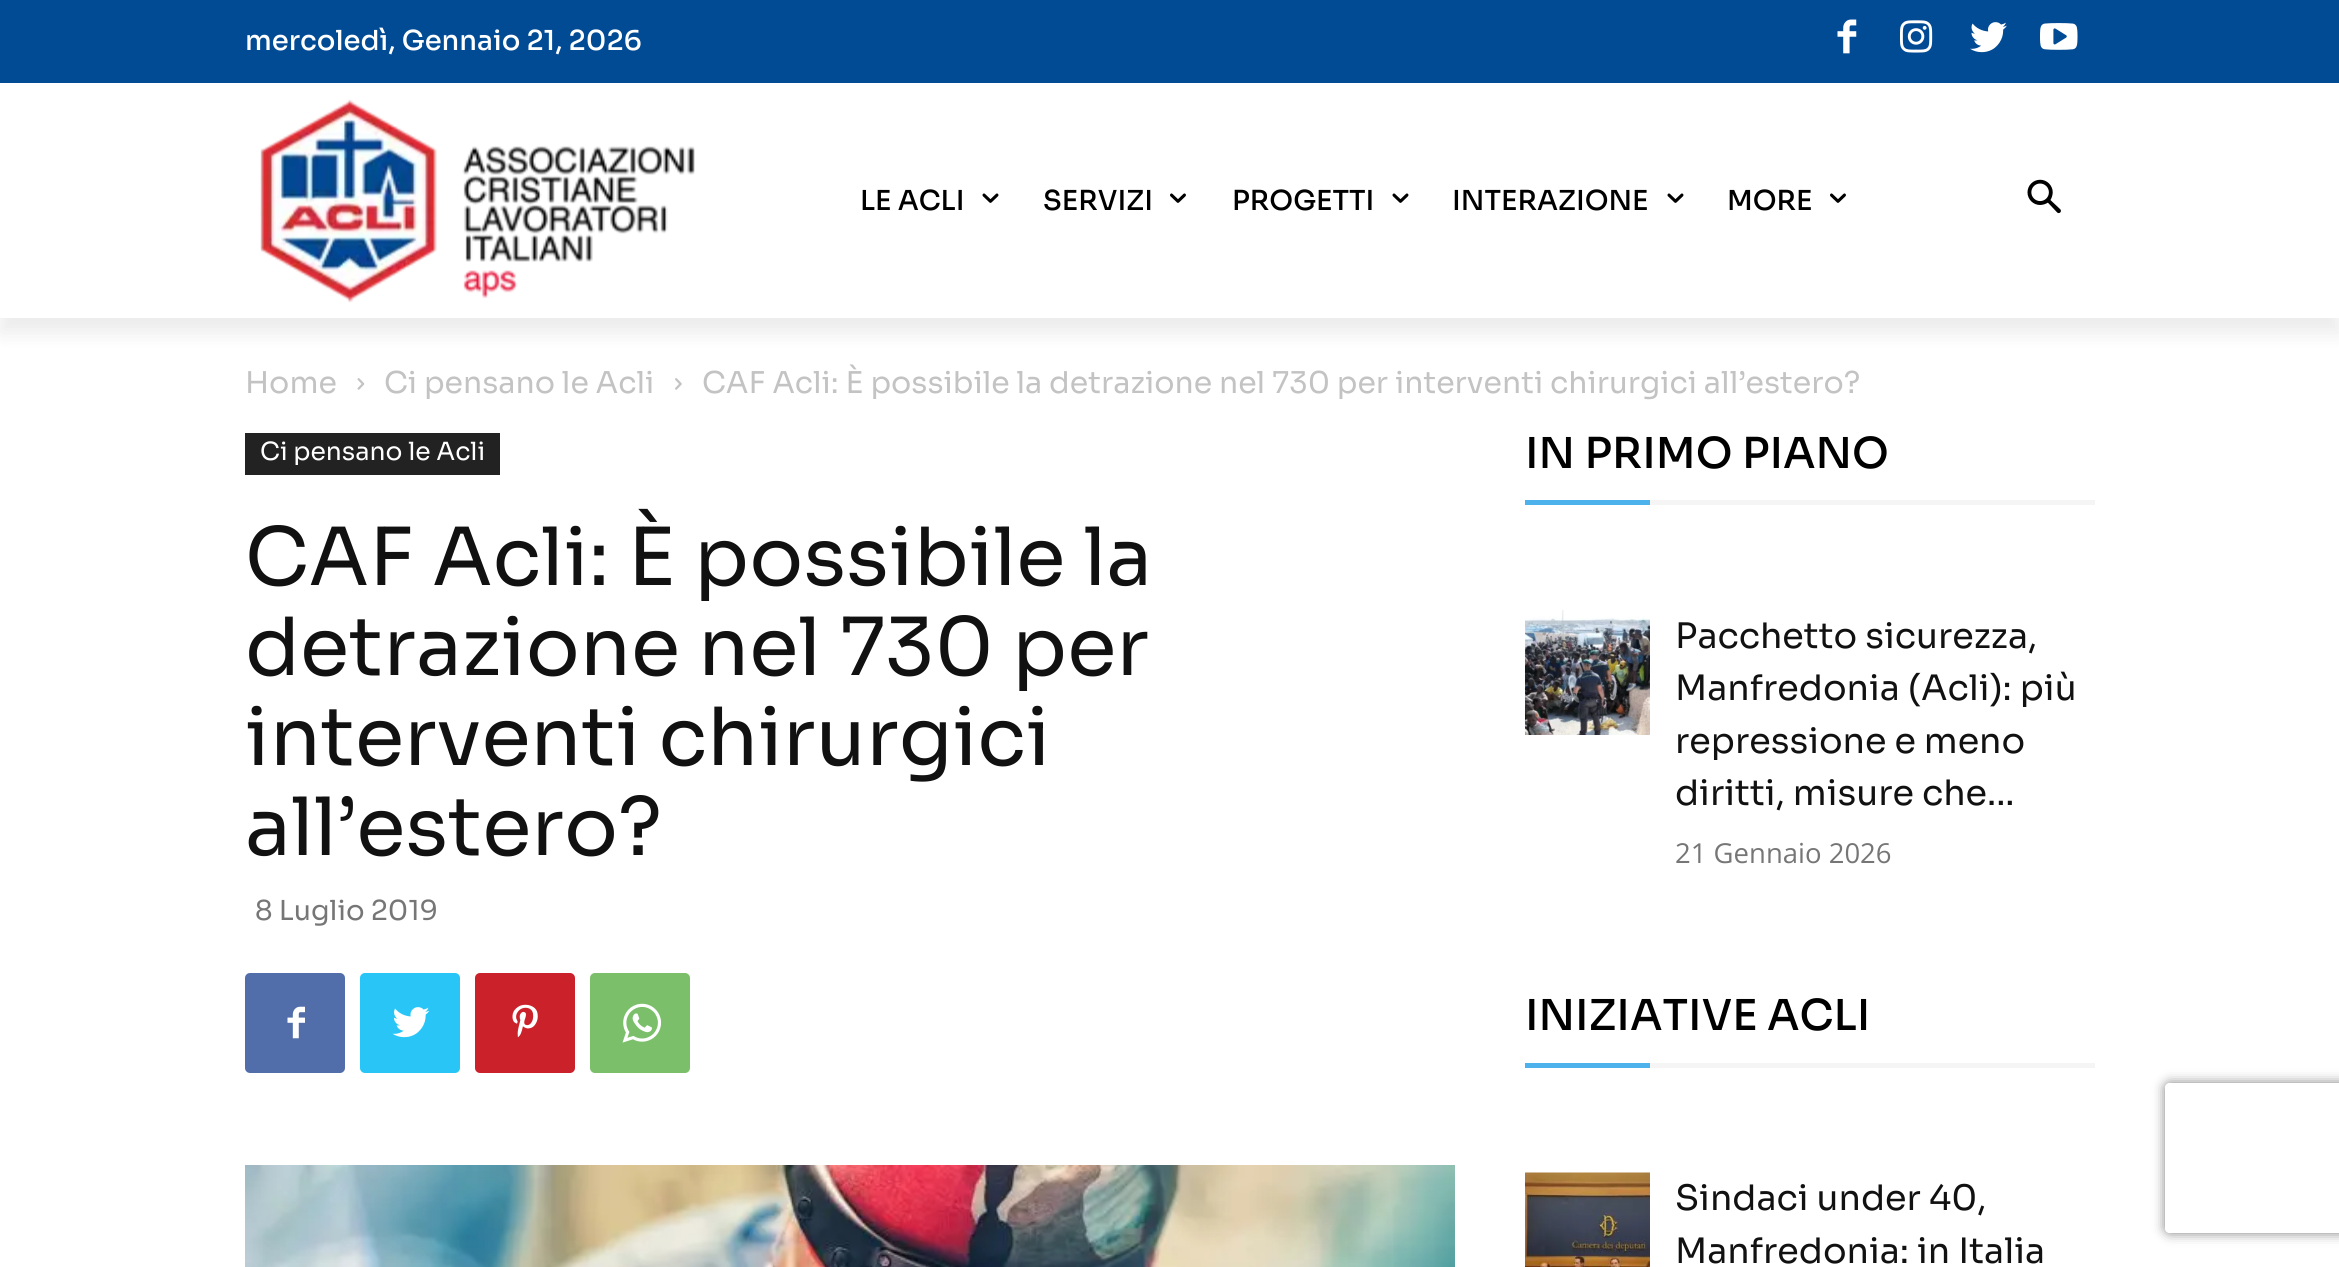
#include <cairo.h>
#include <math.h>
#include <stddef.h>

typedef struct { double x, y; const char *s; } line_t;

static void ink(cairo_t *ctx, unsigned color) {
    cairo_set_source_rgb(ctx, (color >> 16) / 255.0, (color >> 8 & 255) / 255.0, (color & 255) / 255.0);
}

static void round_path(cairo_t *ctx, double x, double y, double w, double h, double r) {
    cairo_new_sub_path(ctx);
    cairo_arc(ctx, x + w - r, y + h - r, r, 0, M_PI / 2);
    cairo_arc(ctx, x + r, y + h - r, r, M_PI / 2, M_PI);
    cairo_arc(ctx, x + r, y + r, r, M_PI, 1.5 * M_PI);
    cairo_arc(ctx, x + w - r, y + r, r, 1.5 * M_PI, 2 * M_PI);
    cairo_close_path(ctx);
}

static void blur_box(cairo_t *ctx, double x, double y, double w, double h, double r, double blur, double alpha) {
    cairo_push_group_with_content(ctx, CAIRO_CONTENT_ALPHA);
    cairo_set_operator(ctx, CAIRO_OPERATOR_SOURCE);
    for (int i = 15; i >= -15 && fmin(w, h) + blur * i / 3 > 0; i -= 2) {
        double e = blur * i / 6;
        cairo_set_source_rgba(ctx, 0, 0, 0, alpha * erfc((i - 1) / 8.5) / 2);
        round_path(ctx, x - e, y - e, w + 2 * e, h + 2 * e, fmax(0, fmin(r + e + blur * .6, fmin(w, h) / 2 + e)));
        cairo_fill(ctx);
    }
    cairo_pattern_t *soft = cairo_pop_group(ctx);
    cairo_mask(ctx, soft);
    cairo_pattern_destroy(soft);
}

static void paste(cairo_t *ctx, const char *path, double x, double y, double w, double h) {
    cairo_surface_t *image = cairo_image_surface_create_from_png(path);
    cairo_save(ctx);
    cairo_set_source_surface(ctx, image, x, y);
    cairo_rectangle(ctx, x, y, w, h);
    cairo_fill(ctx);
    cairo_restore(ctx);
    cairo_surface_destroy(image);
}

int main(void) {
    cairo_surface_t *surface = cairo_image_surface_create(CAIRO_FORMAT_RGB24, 2339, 1267);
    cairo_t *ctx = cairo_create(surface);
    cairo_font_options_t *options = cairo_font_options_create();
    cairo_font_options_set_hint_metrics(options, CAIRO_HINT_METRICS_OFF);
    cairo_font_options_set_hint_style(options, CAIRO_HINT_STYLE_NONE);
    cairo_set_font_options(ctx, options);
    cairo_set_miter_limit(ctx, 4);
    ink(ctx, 0xFFFFFF);
    cairo_paint(ctx);
    ink(ctx, 0x014A94);
    cairo_rectangle(ctx, 0, 0, 2339, 83);
    cairo_fill(ctx);
    cairo_select_font_face(ctx, "Sora Medium", CAIRO_FONT_SLANT_NORMAL, CAIRO_FONT_WEIGHT_NORMAL);
    cairo_set_font_size(ctx, 27.5);
    ink(ctx, 0xFFFFFF);
    cairo_move_to(ctx, 245, 50);
    cairo_show_text(ctx, "mercoledì, Gennaio 21, 2026");
    paste(ctx, "media/1.png", 1837, 19, 20, 35);
    paste(ctx, "media/2.png", 1900, 20, 33, 33);
    paste(ctx, "media/3.png", 1970, 22, 37, 31);
    paste(ctx, "media/4.png", 2040, 23, 38, 27);
    paste(ctx, "media/5.png", 260, 99, 435, 204);
    cairo_save(ctx);
    cairo_set_fill_rule(ctx, CAIRO_FILL_RULE_EVEN_ODD);
    cairo_new_path(ctx);
    cairo_move_to(ctx, 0, 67);
    cairo_line_to(ctx, 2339, 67);
    cairo_line_to(ctx, 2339, 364);
    cairo_line_to(ctx, 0, 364);
    cairo_close_path(ctx);
    cairo_move_to(ctx, 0, 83);
    cairo_line_to(ctx, 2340, 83);
    cairo_line_to(ctx, 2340, 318);
    cairo_line_to(ctx, 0, 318);
    cairo_close_path(ctx);
    cairo_clip(ctx);
    ink(ctx, 0x000000);
    blur_box(ctx, 0, 98, 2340, 235, 0, 10, 0.08);
    cairo_restore(ctx);
    ink(ctx, 0x000000);
    cairo_move_to(ctx, 860, 210);
    cairo_show_text(ctx, "LE ACLI");
    paste(ctx, "media/6.png", 982, 193, 17, 10);
    cairo_move_to(ctx, 1043, 210);
    cairo_show_text(ctx, "SERVIZI");
    paste(ctx, "media/7.png", 1170, 193, 16, 10);
    cairo_move_to(ctx, 1232, 210);
    cairo_show_text(ctx, "PROGETTI");
    paste(ctx, "media/6.png", 1392, 193, 17, 10);
    cairo_move_to(ctx, 1452, 210);
    cairo_show_text(ctx, "INTERAZIONE");
    paste(ctx, "media/6.png", 1667, 193, 17, 10);
    cairo_move_to(ctx, 1727, 210);
    cairo_show_text(ctx, "MORE");
    paste(ctx, "media/7.png", 1830, 193, 16, 10);
    paste(ctx, "media/8.png", 2027, 179, 34, 35);
    cairo_select_font_face(ctx, "Sora", CAIRO_FONT_SLANT_NORMAL, CAIRO_FONT_WEIGHT_NORMAL);
    cairo_set_font_size(ctx, 30);
    ink(ctx, 0xC3C3C3);
    cairo_move_to(ctx, 245, 393);
    cairo_show_text(ctx, "Home");
    paste(ctx, "media/9.png", 357, 378, 8, 12);
    cairo_move_to(ctx, 384, 393);
    cairo_show_text(ctx, "Ci pensano le Acli");
    paste(ctx, "media/10.png", 675, 378, 7, 12);
    cairo_move_to(ctx, 702, 393);
    cairo_show_text(ctx, "CAF Acli: È possibile la detrazione nel 730 per interventi chirurgici all’estero?");
    ink(ctx, 0x222222);
    cairo_rectangle(ctx, 245, 433, 255, 42);
    cairo_fill(ctx);
    cairo_set_font_size(ctx, 25);
    ink(ctx, 0xFFFFFF);
    cairo_move_to(ctx, 260, 460);
    cairo_show_text(ctx, "Ci pensano le Acli");
    cairo_set_font_size(ctx, 80);
    ink(ctx, 0x111111);
    {
        static const line_t items[] = {
            {245, 585, "CAF Acli: È possibile la"},
            {245, 675, "detrazione nel 730 per"},
            {245, 765, "interventi chirurgici"},
            {245, 855, "all’estero?"},
        };
        for (size_t i = 0; i < sizeof items / sizeof *items; i++) {
            cairo_move_to(ctx, items[i].x, items[i].y);
            cairo_show_text(ctx, items[i].s);
        }
    }
    cairo_set_font_size(ctx, 27.5);
    ink(ctx, 0x767676);
    cairo_move_to(ctx, 255, 920);
    cairo_show_text(ctx, "8 Luglio 2019");
    ink(ctx, 0x516EAB);
    round_path(ctx, 245, 973, 100, 100, 5);
    cairo_fill(ctx);
    paste(ctx, "media/11.png", 287, 1006, 18, 33);
    ink(ctx, 0x29C5F6);
    round_path(ctx, 360, 973, 100, 100, 5);
    cairo_fill(ctx);
    paste(ctx, "media/12.png", 392, 1007, 38, 31);
    ink(ctx, 0xCA212A);
    round_path(ctx, 475, 973, 100, 100, 5);
    cairo_fill(ctx);
    paste(ctx, "media/13.png", 512, 1004, 26, 34);
    ink(ctx, 0x7BBF6A);
    round_path(ctx, 590, 973, 100, 100, 5);
    cairo_fill(ctx);
    paste(ctx, "media/14.png", 622, 1003, 40, 40);
    paste(ctx, "media/15.png", 245, 1165, 1210, 102);
    cairo_select_font_face(ctx, "Sora Medium", CAIRO_FONT_SLANT_NORMAL, CAIRO_FONT_WEIGHT_NORMAL);
    cairo_set_font_size(ctx, 42.5);
    ink(ctx, 0x000000);
    cairo_move_to(ctx, 1525, 468);
    cairo_show_text(ctx, "IN PRIMO PIANO");
    ink(ctx, 0x4DB2EC);
    cairo_rectangle(ctx, 1525, 500, 125, 5);
    cairo_fill(ctx);
    ink(ctx, 0xF5F5F5);
    cairo_rectangle(ctx, 1650, 500, 445, 5);
    cairo_fill(ctx);
    paste(ctx, "media/16.png", 1525, 610, 125, 125);
    cairo_select_font_face(ctx, "Sora", CAIRO_FONT_SLANT_NORMAL, CAIRO_FONT_WEIGHT_NORMAL);
    cairo_set_font_size(ctx, 35);
    ink(ctx, 0x111111);
    {
        static const line_t items[] = {
            {1675, 648, "Pacchetto sicurezza,"},
            {1675, 700, "Manfredonia (Acli): più"},
            {1675, 753, "repressione e meno"},
            {1675, 805, "diritti, misure che..."},
        };
        for (size_t i = 0; i < sizeof items / sizeof *items; i++) {
            cairo_move_to(ctx, items[i].x, items[i].y);
            cairo_show_text(ctx, items[i].s);
        }
    }
    cairo_select_font_face(ctx, "Open Sans", CAIRO_FONT_SLANT_NORMAL, CAIRO_FONT_WEIGHT_NORMAL);
    cairo_set_font_size(ctx, 27.5);
    ink(ctx, 0x767676);
    cairo_move_to(ctx, 1675, 863);
    cairo_show_text(ctx, "21 Gennaio 2026");
    cairo_select_font_face(ctx, "Sora Medium", CAIRO_FONT_SLANT_NORMAL, CAIRO_FONT_WEIGHT_NORMAL);
    cairo_set_font_size(ctx, 42.5);
    ink(ctx, 0x000000);
    cairo_move_to(ctx, 1525, 1030);
    cairo_show_text(ctx, "INIZIATIVE ACLI");
    ink(ctx, 0x4DB2EC);
    cairo_rectangle(ctx, 1525, 1063, 125, 5);
    cairo_fill(ctx);
    ink(ctx, 0xF5F5F5);
    cairo_rectangle(ctx, 1650, 1063, 445, 5);
    cairo_fill(ctx);
    paste(ctx, "media/17.png", 1525, 1172, 125, 95);
    cairo_select_font_face(ctx, "Sora", CAIRO_FONT_SLANT_NORMAL, CAIRO_FONT_WEIGHT_NORMAL);
    cairo_set_font_size(ctx, 35);
    ink(ctx, 0x111111);
    cairo_move_to(ctx, 1675, 1210);
    cairo_show_text(ctx, "Sindaci under 40,");
    cairo_move_to(ctx, 1675, 1263);
    cairo_show_text(ctx, "Manfredonia: in Italia");
    cairo_save(ctx);
    cairo_set_fill_rule(ctx, CAIRO_FILL_RULE_EVEN_ODD);
    cairo_new_path(ctx);
    cairo_move_to(ctx, 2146, 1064);
    cairo_line_to(ctx, 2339, 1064);
    cairo_line_to(ctx, 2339, 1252);
    cairo_line_to(ctx, 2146, 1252);
    cairo_close_path(ctx);
    cairo_move_to(ctx, 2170, 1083);
    cairo_line_to(ctx, 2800, 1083);
    cairo_curve_to(ctx, 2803, 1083, 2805, 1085, 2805, 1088);
    cairo_line_to(ctx, 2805, 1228);
    cairo_curve_to(ctx, 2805, 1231, 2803, 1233, 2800, 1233);
    cairo_line_to(ctx, 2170, 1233);
    cairo_curve_to(ctx, 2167, 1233, 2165, 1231, 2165, 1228);
    cairo_line_to(ctx, 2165, 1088);
    cairo_curve_to(ctx, 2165, 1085, 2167, 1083, 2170, 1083);
    cairo_close_path(ctx);
    cairo_clip(ctx);
    ink(ctx, 0x808080);
    blur_box(ctx, 2165, 1083, 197, 150, 5, 6, 1);
    cairo_restore(ctx);
    cairo_surface_write_to_png(surface, "image.png");
    cairo_font_options_destroy(options);
    cairo_destroy(ctx);
    cairo_surface_destroy(surface);
    return 0;
}
